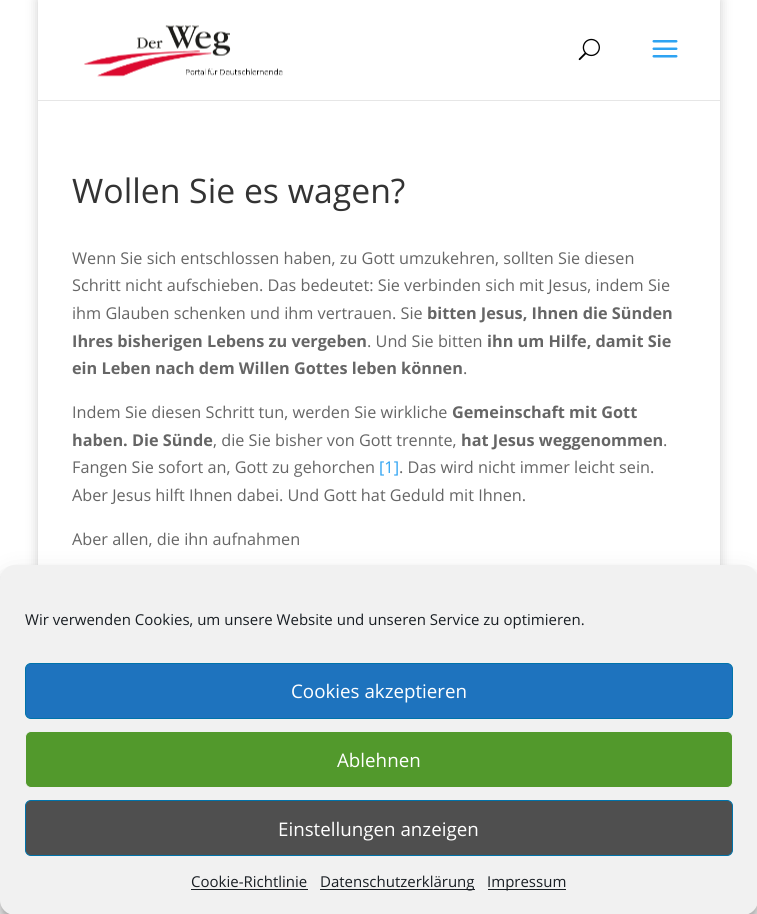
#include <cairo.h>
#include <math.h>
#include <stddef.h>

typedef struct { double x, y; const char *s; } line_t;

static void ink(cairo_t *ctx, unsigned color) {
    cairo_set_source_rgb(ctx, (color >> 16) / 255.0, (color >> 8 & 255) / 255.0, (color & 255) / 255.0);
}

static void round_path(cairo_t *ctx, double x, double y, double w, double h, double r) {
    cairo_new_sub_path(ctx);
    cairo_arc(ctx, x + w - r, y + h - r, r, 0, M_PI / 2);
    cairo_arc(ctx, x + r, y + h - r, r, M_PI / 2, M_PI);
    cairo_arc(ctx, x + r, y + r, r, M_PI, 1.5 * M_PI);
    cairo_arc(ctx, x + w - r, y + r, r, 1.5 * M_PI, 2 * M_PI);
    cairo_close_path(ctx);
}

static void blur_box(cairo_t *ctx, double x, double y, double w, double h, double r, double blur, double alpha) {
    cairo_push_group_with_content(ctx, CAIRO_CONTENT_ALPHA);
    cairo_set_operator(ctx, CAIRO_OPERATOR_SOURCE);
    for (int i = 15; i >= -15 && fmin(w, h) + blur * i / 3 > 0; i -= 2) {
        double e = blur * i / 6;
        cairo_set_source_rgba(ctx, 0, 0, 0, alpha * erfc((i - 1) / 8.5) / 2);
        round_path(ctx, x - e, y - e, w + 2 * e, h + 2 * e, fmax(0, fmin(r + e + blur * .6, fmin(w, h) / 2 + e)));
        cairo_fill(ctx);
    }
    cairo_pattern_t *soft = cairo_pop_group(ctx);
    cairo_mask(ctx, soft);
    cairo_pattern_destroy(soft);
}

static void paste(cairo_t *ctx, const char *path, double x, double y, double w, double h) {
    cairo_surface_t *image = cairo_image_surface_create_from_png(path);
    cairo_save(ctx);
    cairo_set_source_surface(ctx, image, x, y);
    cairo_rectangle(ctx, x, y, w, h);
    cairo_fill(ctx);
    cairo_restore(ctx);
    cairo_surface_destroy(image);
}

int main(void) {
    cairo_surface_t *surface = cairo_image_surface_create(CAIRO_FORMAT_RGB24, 757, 914);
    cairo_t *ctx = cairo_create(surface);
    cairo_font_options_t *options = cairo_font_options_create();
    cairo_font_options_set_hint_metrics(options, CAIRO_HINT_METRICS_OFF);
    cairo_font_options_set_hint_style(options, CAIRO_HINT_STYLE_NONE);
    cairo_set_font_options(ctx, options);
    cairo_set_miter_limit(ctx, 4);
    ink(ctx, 0xFFFFFF);
    cairo_paint(ctx);
    cairo_save(ctx);
    cairo_set_fill_rule(ctx, CAIRO_FILL_RULE_EVEN_ODD);
    cairo_new_path(ctx);
    cairo_move_to(ctx, 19, 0);
    cairo_line_to(ctx, 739, 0);
    cairo_line_to(ctx, 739, 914);
    cairo_line_to(ctx, 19, 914);
    cairo_close_path(ctx);
    cairo_move_to(ctx, 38, 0);
    cairo_line_to(ctx, 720, 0);
    cairo_line_to(ctx, 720, 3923);
    cairo_line_to(ctx, 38, 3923);
    cairo_close_path(ctx);
    cairo_clip(ctx);
    ink(ctx, 0x000000);
    blur_box(ctx, 38, 0, 682, 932, 0, 6, 0.2);
    cairo_restore(ctx);
    ink(ctx, 0xE6E6E6);
    cairo_rectangle(ctx, 38, 100, 682, 1);
    cairo_fill(ctx);
    paste(ctx, "media/1.png", 84, 25, 199, 52);
    paste(ctx, "media/2.png", 578, 38, 22, 23);
    paste(ctx, "media/3.png", 652, 40, 26, 18);
    cairo_select_font_face(ctx, "Open Sans", CAIRO_FONT_SLANT_NORMAL, CAIRO_FONT_WEIGHT_NORMAL);
    cairo_set_font_size(ctx, 33.75);
    ink(ctx, 0x333333);
    cairo_move_to(ctx, 72, 203);
    cairo_show_text(ctx, "Wollen Sie es wagen?");
    cairo_set_font_size(ctx, 16.25);
    ink(ctx, 0x666666);
    {
        static const line_t items[] = {
            {72, 264, "Wenn Sie sich entschlossen haben, zu Gott umzukehren, sollten Sie diesen"},
            {72, 291, "Schritt nicht aufschieben. Das bedeutet: Sie verbinden sich mit Jesus, indem Sie"},
            {72, 319, "ihm Glauben schenken und ihm vertrauen. Sie"},
        };
        for (size_t i = 0; i < sizeof items / sizeof *items; i++) {
            cairo_move_to(ctx, items[i].x, items[i].y);
            cairo_show_text(ctx, items[i].s);
        }
    }
    cairo_select_font_face(ctx, "Open Sans", CAIRO_FONT_SLANT_NORMAL, CAIRO_FONT_WEIGHT_BOLD);
    cairo_move_to(ctx, 427, 319);
    cairo_show_text(ctx, "bitten Jesus, Ihnen die Sünden");
    cairo_move_to(ctx, 72, 347);
    cairo_show_text(ctx, "Ihres bisherigen Lebens zu vergeben");
    cairo_select_font_face(ctx, "Open Sans", CAIRO_FONT_SLANT_NORMAL, CAIRO_FONT_WEIGHT_NORMAL);
    cairo_move_to(ctx, 367, 347);
    cairo_show_text(ctx, ". Und Sie bitten");
    cairo_select_font_face(ctx, "Open Sans", CAIRO_FONT_SLANT_NORMAL, CAIRO_FONT_WEIGHT_BOLD);
    cairo_move_to(ctx, 487, 347);
    cairo_show_text(ctx, "ihn um Hilfe, damit Sie");
    cairo_move_to(ctx, 72, 374);
    cairo_show_text(ctx, "ein Leben nach dem Willen Gottes leben können");
    cairo_select_font_face(ctx, "Open Sans", CAIRO_FONT_SLANT_NORMAL, CAIRO_FONT_WEIGHT_NORMAL);
    cairo_move_to(ctx, 463, 374);
    cairo_show_text(ctx, ".");
    cairo_move_to(ctx, 72, 418);
    cairo_show_text(ctx, "Indem Sie diesen Schritt tun, werden Sie wirkliche");
    cairo_select_font_face(ctx, "Open Sans", CAIRO_FONT_SLANT_NORMAL, CAIRO_FONT_WEIGHT_BOLD);
    cairo_move_to(ctx, 452, 418);
    cairo_show_text(ctx, "Gemeinschaft mit Gott");
    cairo_move_to(ctx, 72, 446);
    cairo_show_text(ctx, "haben. Die Sünde");
    cairo_select_font_face(ctx, "Open Sans", CAIRO_FONT_SLANT_NORMAL, CAIRO_FONT_WEIGHT_NORMAL);
    cairo_move_to(ctx, 213, 446);
    cairo_show_text(ctx, ", die Sie bisher von Gott trennte,");
    cairo_select_font_face(ctx, "Open Sans", CAIRO_FONT_SLANT_NORMAL, CAIRO_FONT_WEIGHT_BOLD);
    cairo_move_to(ctx, 461, 446);
    cairo_show_text(ctx, "hat Jesus weggenommen");
    cairo_select_font_face(ctx, "Open Sans", CAIRO_FONT_SLANT_NORMAL, CAIRO_FONT_WEIGHT_NORMAL);
    cairo_move_to(ctx, 663, 446);
    cairo_show_text(ctx, ".");
    cairo_move_to(ctx, 72, 473);
    cairo_show_text(ctx, "Fangen Sie sofort an, Gott zu gehorchen");
    ink(ctx, 0x2EA3F2);
    cairo_move_to(ctx, 379, 473);
    cairo_show_text(ctx, "[1]");
    ink(ctx, 0x666666);
    {
        static const line_t items[] = {
            {399, 473, ". Das wird nicht immer leicht sein."},
            {72, 501, "Aber Jesus hilft Ihnen dabei. Und Gott hat Geduld mit Ihnen."},
            {72, 545, "Aber allen, die ihn aufnahmen"},
        };
        for (size_t i = 0; i < sizeof items / sizeof *items; i++) {
            cairo_move_to(ctx, items[i].x, items[i].y);
            cairo_show_text(ctx, items[i].s);
        }
    }
    ink(ctx, 0x000000);
    blur_box(ctx, 0, 573, 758, 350, 15, 4, 0.23);
    blur_box(ctx, 0, 578, 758, 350, 15, 12.5, 0.19);
    ink(ctx, 0xF1F1F1);
    round_path(ctx, 0, 565, 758, 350, 15);
    cairo_fill(ctx);
    cairo_set_font_size(ctx, 15);
    ink(ctx, 0x191E23);
    cairo_move_to(ctx, 25, 625);
    cairo_show_text(ctx, "Wir verwenden Cookies, um unsere Website und unseren Service zu optimieren.");
    ink(ctx, 0x1E73BE);
    round_path(ctx, 25.5, 663.5, 707, 55, 5.5);
    cairo_fill_preserve(ctx);
    ink(ctx, 0x0073AA);
    cairo_set_line_width(ctx, 1);
    cairo_stroke(ctx);
    cairo_set_font_size(ctx, 18.75);
    ink(ctx, 0xFFFFFF);
    cairo_move_to(ctx, 291, 698);
    cairo_show_text(ctx, "Cookies akzeptieren");
    ink(ctx, 0x52992C);
    round_path(ctx, 25.5, 731.5, 707, 56, 5.5);
    cairo_fill_preserve(ctx);
    ink(ctx, 0xF1F1F1);
    cairo_stroke(ctx);
    ink(ctx, 0xFFFFFF);
    cairo_move_to(ctx, 337, 767);
    cairo_show_text(ctx, "Ablehnen");
    ink(ctx, 0x4F4F4F);
    round_path(ctx, 25.5, 800.5, 707, 55, 5.5);
    cairo_fill_preserve(ctx);
    ink(ctx, 0x0073AA);
    cairo_stroke(ctx);
    ink(ctx, 0xFFFFFF);
    cairo_move_to(ctx, 278, 836);
    cairo_show_text(ctx, "Einstellungen anzeigen");
    cairo_set_font_size(ctx, 15);
    ink(ctx, 0x191E23);
    cairo_move_to(ctx, 191, 887);
    cairo_show_text(ctx, "Cookie-Richtlinie");
    cairo_rectangle(ctx, 191, 889, 117, 1);
    cairo_fill(ctx);
    cairo_rectangle(ctx, 320, 889, 155, 1);
    cairo_fill(ctx);
    cairo_move_to(ctx, 320, 887);
    cairo_show_text(ctx, "Datenschutzerklärung");
    cairo_rectangle(ctx, 488, 889, 78, 1);
    cairo_fill(ctx);
    cairo_move_to(ctx, 487, 887);
    cairo_show_text(ctx, "Impressum");
    cairo_surface_write_to_png(surface, "image.png");
    cairo_font_options_destroy(options);
    cairo_destroy(ctx);
    cairo_surface_destroy(surface);
    return 0;
}
